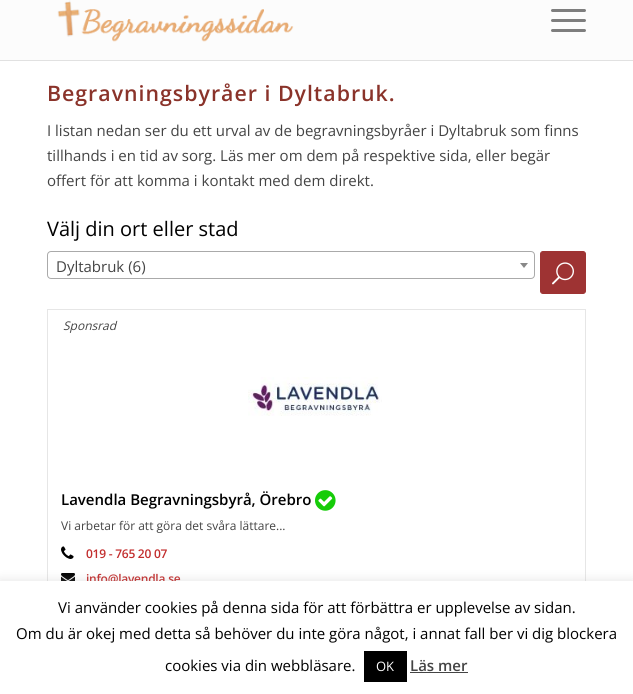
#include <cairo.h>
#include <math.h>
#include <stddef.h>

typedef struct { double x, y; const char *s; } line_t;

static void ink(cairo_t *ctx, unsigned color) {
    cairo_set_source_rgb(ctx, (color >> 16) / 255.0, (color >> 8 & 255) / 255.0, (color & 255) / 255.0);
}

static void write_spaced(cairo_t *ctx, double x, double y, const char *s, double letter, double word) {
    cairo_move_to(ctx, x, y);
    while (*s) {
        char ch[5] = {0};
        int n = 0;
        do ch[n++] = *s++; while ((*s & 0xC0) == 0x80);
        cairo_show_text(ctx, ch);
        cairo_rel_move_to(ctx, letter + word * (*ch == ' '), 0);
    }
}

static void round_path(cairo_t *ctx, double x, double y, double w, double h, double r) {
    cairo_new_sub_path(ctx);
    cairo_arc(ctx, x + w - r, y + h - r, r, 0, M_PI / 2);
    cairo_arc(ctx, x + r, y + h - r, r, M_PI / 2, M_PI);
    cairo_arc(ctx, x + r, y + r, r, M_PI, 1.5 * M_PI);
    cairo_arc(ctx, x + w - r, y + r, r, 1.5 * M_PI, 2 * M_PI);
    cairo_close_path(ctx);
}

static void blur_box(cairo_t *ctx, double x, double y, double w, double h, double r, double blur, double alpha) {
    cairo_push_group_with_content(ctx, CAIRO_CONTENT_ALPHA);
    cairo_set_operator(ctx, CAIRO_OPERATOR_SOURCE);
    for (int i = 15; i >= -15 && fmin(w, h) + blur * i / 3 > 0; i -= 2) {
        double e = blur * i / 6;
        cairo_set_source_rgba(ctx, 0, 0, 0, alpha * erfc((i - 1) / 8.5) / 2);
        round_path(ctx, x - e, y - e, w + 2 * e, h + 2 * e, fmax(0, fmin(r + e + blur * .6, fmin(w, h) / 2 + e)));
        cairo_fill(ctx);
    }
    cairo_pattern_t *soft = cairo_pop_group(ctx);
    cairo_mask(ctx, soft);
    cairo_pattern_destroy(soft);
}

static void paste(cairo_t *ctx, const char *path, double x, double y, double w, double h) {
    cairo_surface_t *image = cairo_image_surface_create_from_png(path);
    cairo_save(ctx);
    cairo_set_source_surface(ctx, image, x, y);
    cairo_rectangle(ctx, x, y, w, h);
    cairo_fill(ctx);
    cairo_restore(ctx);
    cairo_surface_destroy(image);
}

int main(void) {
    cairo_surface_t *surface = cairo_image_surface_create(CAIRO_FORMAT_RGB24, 633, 694);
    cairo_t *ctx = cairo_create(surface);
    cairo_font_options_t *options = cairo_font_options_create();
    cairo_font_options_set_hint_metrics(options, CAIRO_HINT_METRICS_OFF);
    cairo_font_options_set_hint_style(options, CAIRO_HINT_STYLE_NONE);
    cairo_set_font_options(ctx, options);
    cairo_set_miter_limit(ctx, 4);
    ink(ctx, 0xFFFFFF);
    cairo_paint(ctx);
    ink(ctx, 0xFCFCFC);
    cairo_rectangle(ctx, 0, 0, 633, 60);
    cairo_fill(ctx);
    ink(ctx, 0xE1E1E1);
    cairo_rectangle(ctx, 0, 60, 633, 1);
    cairo_fill(ctx);
    paste(ctx, "media/1.png", 57, 0, 237, 42);
    ink(ctx, 0x7E7E7E);
    round_path(ctx, 551, 19, 35, 3, 1.5);
    cairo_fill(ctx);
    round_path(ctx, 551, 9, 35, 3, 1.5);
    cairo_fill(ctx);
    round_path(ctx, 551, 29, 35, 3, 1.5);
    cairo_fill(ctx);
    cairo_select_font_face(ctx, "Open Sans SemiBold", CAIRO_FONT_SLANT_NORMAL, CAIRO_FONT_WEIGHT_NORMAL);
    cairo_set_font_size(ctx, 21.3);
    ink(ctx, 0x8A332A);
    write_spaced(ctx, 47, 101, "Begravningsbyråer i Dyltabruk.", 1, 0);
    cairo_select_font_face(ctx, "Open Sans", CAIRO_FONT_SLANT_NORMAL, CAIRO_FONT_WEIGHT_NORMAL);
    cairo_set_font_size(ctx, 15);
    ink(ctx, 0x444444);
    {
        static const line_t items[] = {
            {47, 136, "I listan nedan ser du ett urval av de begravningsbyråer i Dyltabruk som finns"},
            {47, 161, "tillhands i en tid av sorg. Läs mer om dem på respektive sida, eller begär"},
            {47, 186, "offert för att komma i kontakt med dem direkt."},
        };
        for (size_t i = 0; i < sizeof items / sizeof *items; i++) {
            cairo_move_to(ctx, items[i].x, items[i].y);
            cairo_show_text(ctx, items[i].s);
        }
    }
    cairo_set_font_size(ctx, 20);
    ink(ctx, 0x000000);
    cairo_move_to(ctx, 47, 236);
    cairo_show_text(ctx, "Välj din ort eller stad");
    round_path(ctx, 47.5, 251.5, 487, 27, 3.5);
    ink(ctx, 0xAAAAAA);
    cairo_set_line_width(ctx, 1);
    cairo_stroke(ctx);
    cairo_set_font_size(ctx, 15);
    ink(ctx, 0x444444);
    cairo_move_to(ctx, 56, 272);
    cairo_show_text(ctx, "Dyltabruk (6)");
    ink(ctx, 0x888888);
    cairo_new_path(ctx);
    cairo_move_to(ctx, 520, 263);
    cairo_line_to(ctx, 528, 263);
    cairo_line_to(ctx, 524, 268);
    cairo_close_path(ctx);
    cairo_fill(ctx);
    ink(ctx, 0x9E3333);
    round_path(ctx, 540.5, 251.5, 45, 42, 2.5);
    cairo_fill_preserve(ctx);
    cairo_stroke(ctx);
    paste(ctx, "media/2.png", 552, 262, 22, 23);
    cairo_rectangle(ctx, 47.5, 309.5, 538, 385);
    ink(ctx, 0xE6E6E6);
    cairo_stroke(ctx);
    cairo_select_font_face(ctx, "Open Sans", CAIRO_FONT_SLANT_ITALIC, CAIRO_FONT_WEIGHT_NORMAL);
    cairo_set_font_size(ctx, 12);
    ink(ctx, 0x444444);
    cairo_move_to(ctx, 63, 330);
    cairo_show_text(ctx, "Sponsrad");
    paste(ctx, "media/3.png", 248, 377, 134, 39);
    cairo_select_font_face(ctx, "Open Sans SemiBold", CAIRO_FONT_SLANT_NORMAL, CAIRO_FONT_WEIGHT_NORMAL);
    cairo_set_font_size(ctx, 15);
    ink(ctx, 0x000000);
    cairo_move_to(ctx, 61, 505);
    cairo_show_text(ctx, "Lavendla Begravningsbyrå, Örebro");
    paste(ctx, "media/4.png", 315, 490, 21, 21);
    cairo_select_font_face(ctx, "Open Sans", CAIRO_FONT_SLANT_NORMAL, CAIRO_FONT_WEIGHT_NORMAL);
    cairo_set_font_size(ctx, 12);
    ink(ctx, 0x444444);
    cairo_move_to(ctx, 61, 530);
    cairo_show_text(ctx, "Vi arbetar för att göra det svåra lättare...");
    paste(ctx, "media/5.png", 61, 546, 13, 13);
    cairo_select_font_face(ctx, "Open Sans SemiBold", CAIRO_FONT_SLANT_NORMAL, CAIRO_FONT_WEIGHT_NORMAL);
    ink(ctx, 0xC22D2D);
    write_spaced(ctx, 86, 558, "019 - 765 20 07", -0.25, 0);
    paste(ctx, "media/6.png", 61, 573, 14, 8);
    write_spaced(ctx, 86, 583, "info@lavendla.se", -0.25, 0);
    ink(ctx, 0xACABAB);
    blur_box(ctx, 0, 580, 633, 113, 0, 5, 0.3);
    ink(ctx, 0xFFFFFF);
    cairo_rectangle(ctx, 0, 581, 633, 113);
    cairo_fill(ctx);
    cairo_select_font_face(ctx, "Open Sans", CAIRO_FONT_SLANT_NORMAL, CAIRO_FONT_WEIGHT_NORMAL);
    cairo_set_font_size(ctx, 15);
    ink(ctx, 0x000000);
    {
        static const line_t items[] = {
            {58, 613, "Vi använder cookies på denna sida för att förbättra er upplevelse av sidan."},
            {16, 639, "Om du är okej med detta så behöver du inte göra något, i annat fall ber vi dig blockera"},
            {165, 671, "cookies via din webbläsare."},
        };
        for (size_t i = 0; i < sizeof items / sizeof *items; i++) {
            cairo_move_to(ctx, items[i].x, items[i].y);
            cairo_show_text(ctx, items[i].s);
        }
    }
    cairo_rectangle(ctx, 364, 651, 43, 31);
    cairo_fill(ctx);
    cairo_set_font_size(ctx, 13);
    ink(ctx, 0xFFFFFF);
    cairo_move_to(ctx, 376, 671);
    cairo_show_text(ctx, "OK");
    cairo_select_font_face(ctx, "Open Sans SemiBold", CAIRO_FONT_SLANT_NORMAL, CAIRO_FONT_WEIGHT_NORMAL);
    cairo_set_font_size(ctx, 15);
    ink(ctx, 0x444444);
    cairo_move_to(ctx, 410, 671);
    cairo_show_text(ctx, "Läs mer");
    cairo_rectangle(ctx, 410, 672, 58, 1);
    cairo_fill(ctx);
    cairo_surface_write_to_png(surface, "image.png");
    cairo_font_options_destroy(options);
    cairo_destroy(ctx);
    cairo_surface_destroy(surface);
    return 0;
}
